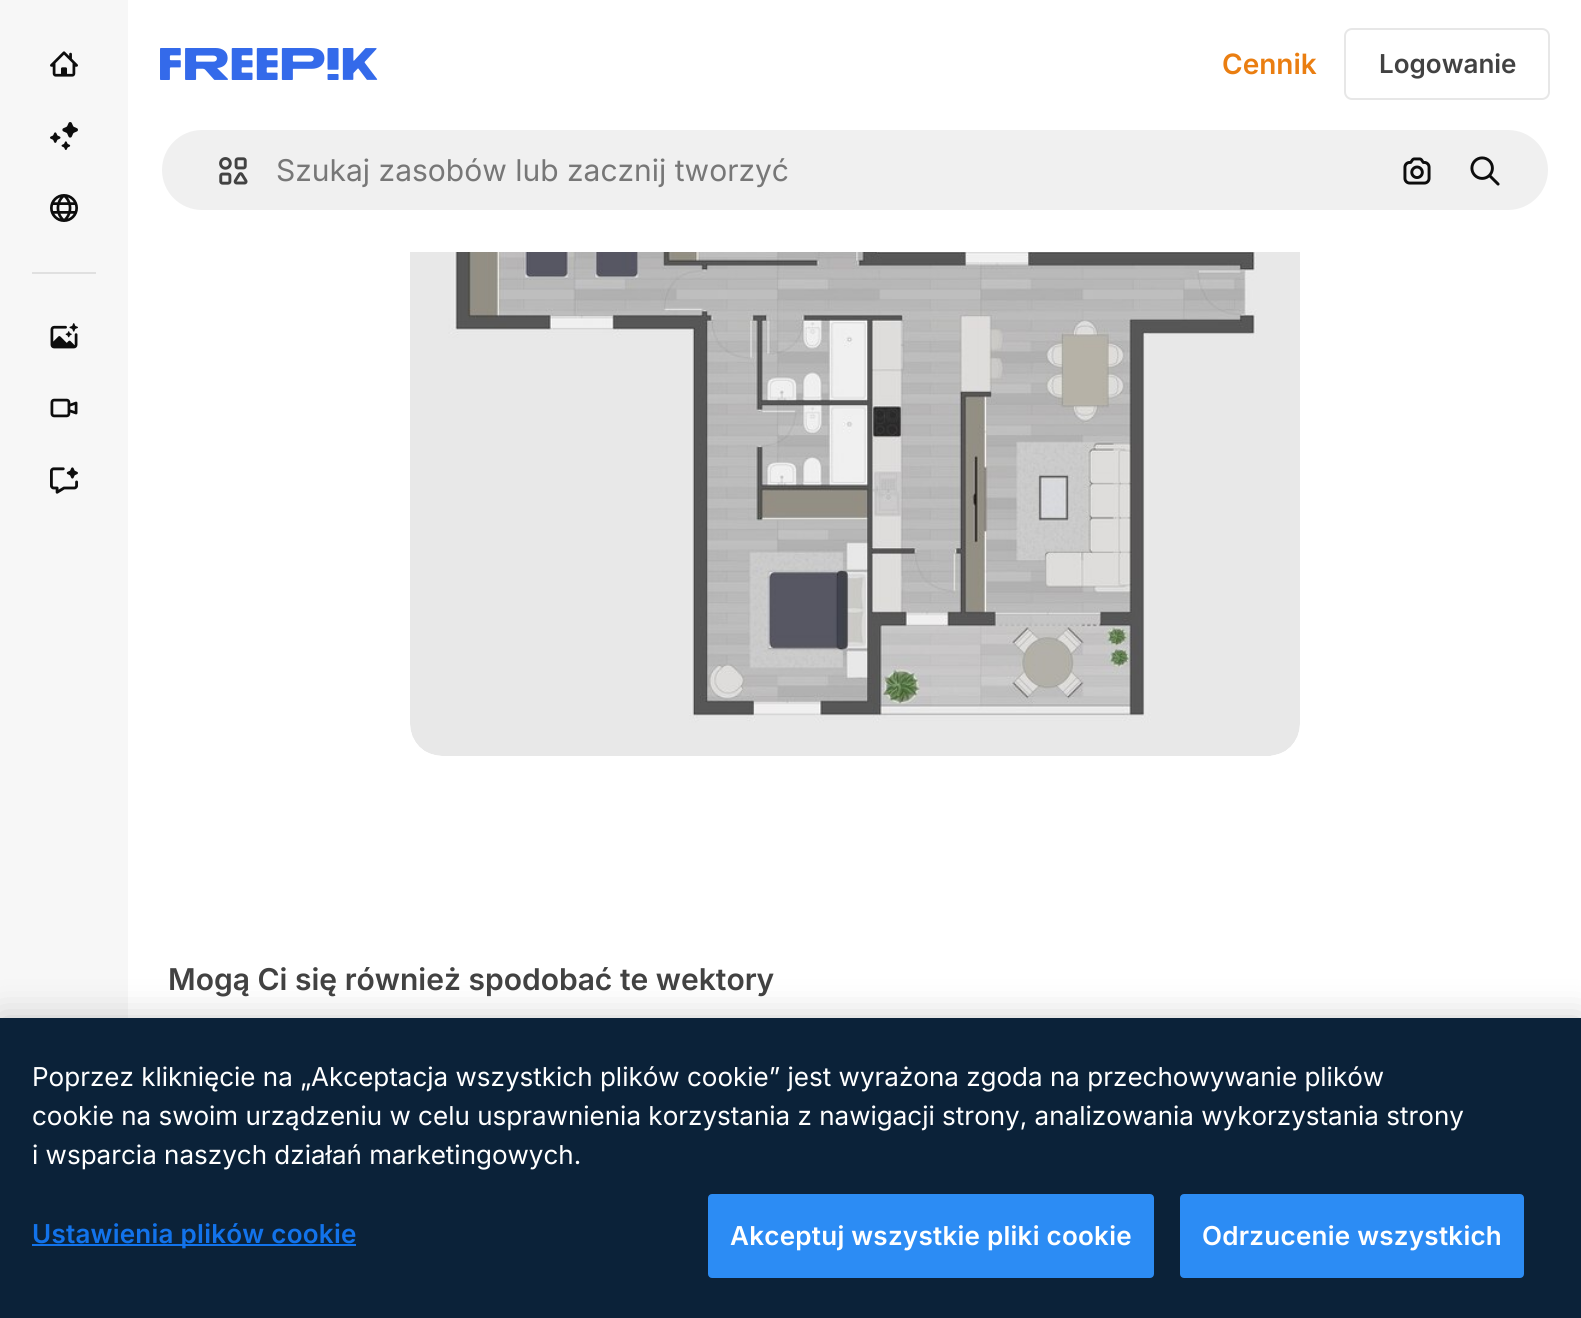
#include <cairo.h>
#include <math.h>
#include <stddef.h>

typedef struct { double x, y; const char *s; } line_t;

static void ink(cairo_t *ctx, unsigned color) {
    cairo_set_source_rgb(ctx, (color >> 16) / 255.0, (color >> 8 & 255) / 255.0, (color & 255) / 255.0);
}

static void write_spaced(cairo_t *ctx, double x, double y, const char *s, double letter, double word) {
    cairo_move_to(ctx, x, y);
    while (*s) {
        char ch[5] = {0};
        int n = 0;
        do ch[n++] = *s++; while ((*s & 0xC0) == 0x80);
        cairo_show_text(ctx, ch);
        cairo_rel_move_to(ctx, letter + word * (*ch == ' '), 0);
    }
}

static void round_path(cairo_t *ctx, double x, double y, double w, double h, double r) {
    cairo_new_sub_path(ctx);
    cairo_arc(ctx, x + w - r, y + h - r, r, 0, M_PI / 2);
    cairo_arc(ctx, x + r, y + h - r, r, M_PI / 2, M_PI);
    cairo_arc(ctx, x + r, y + r, r, M_PI, 1.5 * M_PI);
    cairo_arc(ctx, x + w - r, y + r, r, 1.5 * M_PI, 2 * M_PI);
    cairo_close_path(ctx);
}

static void blur_box(cairo_t *ctx, double x, double y, double w, double h, double r, double blur, double alpha) {
    cairo_push_group_with_content(ctx, CAIRO_CONTENT_ALPHA);
    cairo_set_operator(ctx, CAIRO_OPERATOR_SOURCE);
    for (int i = 15; i >= -15 && fmin(w, h) + blur * i / 3 > 0; i -= 2) {
        double e = blur * i / 6;
        cairo_set_source_rgba(ctx, 0, 0, 0, alpha * erfc((i - 1) / 8.5) / 2);
        round_path(ctx, x - e, y - e, w + 2 * e, h + 2 * e, fmax(0, fmin(r + e + blur * .6, fmin(w, h) / 2 + e)));
        cairo_fill(ctx);
    }
    cairo_pattern_t *soft = cairo_pop_group(ctx);
    cairo_mask(ctx, soft);
    cairo_pattern_destroy(soft);
}

static void paste(cairo_t *ctx, const char *path, double x, double y, double w, double h) {
    cairo_surface_t *image = cairo_image_surface_create_from_png(path);
    cairo_save(ctx);
    cairo_set_source_surface(ctx, image, x, y);
    cairo_rectangle(ctx, x, y, w, h);
    cairo_fill(ctx);
    cairo_restore(ctx);
    cairo_surface_destroy(image);
}

int main(void) {
    cairo_surface_t *surface = cairo_image_surface_create(CAIRO_FORMAT_RGB24, 1581, 1318);
    cairo_t *ctx = cairo_create(surface);
    cairo_font_options_t *options = cairo_font_options_create();
    cairo_font_options_set_hint_metrics(options, CAIRO_HINT_METRICS_OFF);
    cairo_font_options_set_hint_style(options, CAIRO_HINT_STYLE_NONE);
    cairo_set_font_options(ctx, options);
    cairo_set_miter_limit(ctx, 4);
    ink(ctx, 0xFFFFFF);
    cairo_paint(ctx);
    ink(ctx, 0xF7F7F7);
    cairo_rectangle(ctx, 0, 0, 128, 1018);
    cairo_fill(ctx);
    paste(ctx, "media/1.png", 50, 51, 28, 26);
    paste(ctx, "media/2.png", 50, 122, 28, 28);
    paste(ctx, "media/3.png", 50, 194, 28, 28);
    ink(ctx, 0xE0E0E0);
    cairo_rectangle(ctx, 32, 272, 64, 2);
    cairo_fill(ctx);
    paste(ctx, "media/4.png", 50, 323, 28, 26);
    paste(ctx, "media/5.png", 50, 398, 28, 20);
    paste(ctx, "media/6.png", 50, 467, 28, 27);
    paste(ctx, "media/7.png", 160, 48, 218, 32);
    cairo_select_font_face(ctx, "Inter SemiBold", CAIRO_FONT_SLANT_NORMAL, CAIRO_FONT_WEIGHT_NORMAL);
    cairo_set_font_size(ctx, 28);
    ink(ctx, 0xEA7E11);
    cairo_move_to(ctx, 1222, 74);
    cairo_show_text(ctx, "Cennik");
    round_path(ctx, 1345, 29, 204, 70, 7);
    ink(ctx, 0xE7E7E7);
    cairo_stroke(ctx);
    cairo_set_font_size(ctx, 26);
    ink(ctx, 0x424242);
    cairo_move_to(ctx, 1379, 73);
    cairo_show_text(ctx, "Logowanie");
    ink(ctx, 0xF0F0F0);
    round_path(ctx, 161, 129, 1388, 82, 41);
    cairo_fill_preserve(ctx);
    ink(ctx, 0xFFFFFF);
    cairo_stroke(ctx);
    paste(ctx, "media/8.png", 219, 157, 29, 28);
    cairo_select_font_face(ctx, "Inter", CAIRO_FONT_SLANT_NORMAL, CAIRO_FONT_WEIGHT_NORMAL);
    cairo_set_font_size(ctx, 30);
    ink(ctx, 0x777777);
    cairo_move_to(ctx, 276, 181);
    cairo_show_text(ctx, "Szukaj zasobów lub zacznij tworzyć");
    paste(ctx, "media/9.png", 1403, 157, 28, 28);
    paste(ctx, "media/10.png", 1470, 156, 30, 30);
    paste(ctx, "media/11.png", 410, 252, 890, 504);
    cairo_select_font_face(ctx, "Inter SemiBold", CAIRO_FONT_SLANT_NORMAL, CAIRO_FONT_WEIGHT_NORMAL);
    ink(ctx, 0x424242);
    cairo_move_to(ctx, 168, 990);
    cairo_show_text(ctx, "Mogą Ci się również spodobać te wektory");
    ink(ctx, 0x000000);
    blur_box(ctx, 0, 1018, 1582, 300, 0, 18, 0.2);
    ink(ctx, 0x0B2239);
    cairo_rectangle(ctx, 0, 1018, 1581, 300);
    cairo_fill(ctx);
    cairo_select_font_face(ctx, "Inter", CAIRO_FONT_SLANT_NORMAL, CAIRO_FONT_WEIGHT_NORMAL);
    cairo_set_font_size(ctx, 26.02);
    ink(ctx, 0xFFFFFF);
    {
        static const line_t items[] = {
            {32, 1086, "Poprzez kliknięcie na „Akceptacja wszystkich plików cookie” jest wyrażona zgoda na przechowywanie plików"},
            {32, 1125, "cookie na swoim urządzeniu w celu usprawnienia korzystania z nawigacji strony, analizowania wykorzystania strony"},
            {32, 1164, "i wsparcia naszych działań marketingowych."},
        };
        for (size_t i = 0; i < sizeof items / sizeof *items; i++) {
            cairo_move_to(ctx, items[i].x, items[i].y);
            cairo_show_text(ctx, items[i].s);
        }
    }
    ink(ctx, 0x1273EB);
    cairo_rectangle(ctx, 32, 1244, 324, 2);
    cairo_fill(ctx);
    cairo_select_font_face(ctx, "Inter SemiBold", CAIRO_FONT_SLANT_NORMAL, CAIRO_FONT_WEIGHT_NORMAL);
    write_spaced(ctx, 32, 1243, "Ustawienia plików cookie", 0.25, 0);
    ink(ctx, 0x2C8CF4);
    round_path(ctx, 709, 1195, 444, 82, 3);
    cairo_fill_preserve(ctx);
    cairo_stroke(ctx);
    ink(ctx, 0xFFFFFF);
    write_spaced(ctx, 730, 1245, "Akceptuj wszystkie pliki cookie", 0.25, 0);
    ink(ctx, 0x2C8CF4);
    round_path(ctx, 1181, 1195, 342, 82, 3);
    cairo_fill_preserve(ctx);
    cairo_stroke(ctx);
    ink(ctx, 0xFFFFFF);
    write_spaced(ctx, 1202, 1245, "Odrzucenie wszystkich", 0.25, 0);
    cairo_surface_write_to_png(surface, "image.png");
    cairo_font_options_destroy(options);
    cairo_destroy(ctx);
    cairo_surface_destroy(surface);
    return 0;
}
